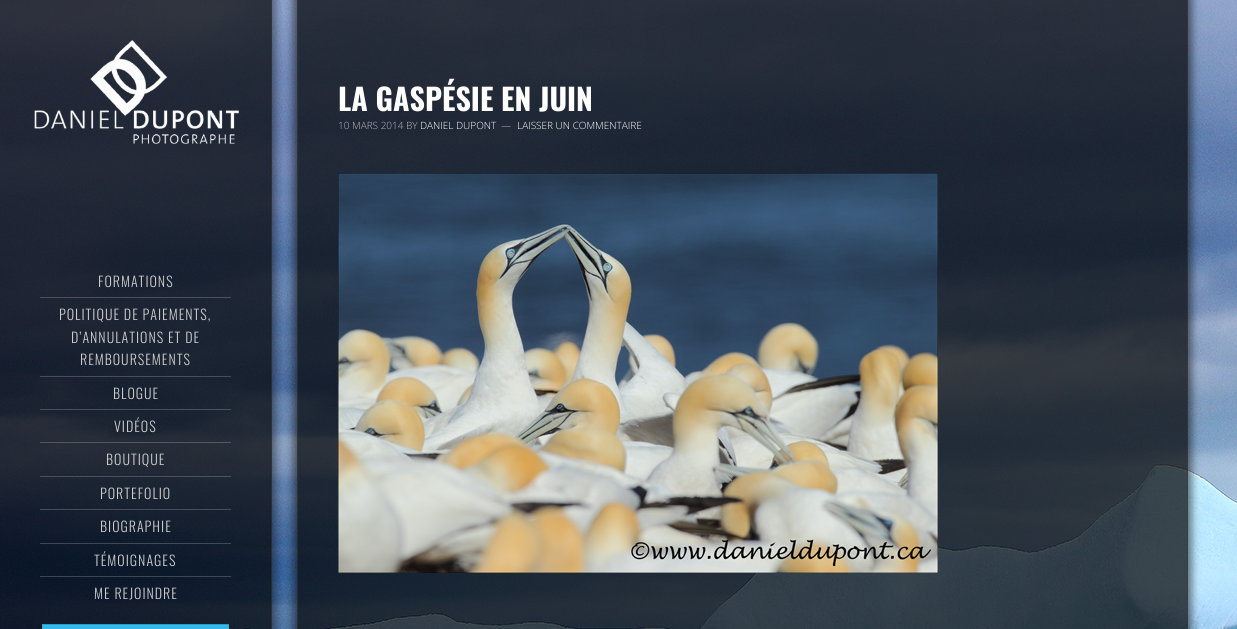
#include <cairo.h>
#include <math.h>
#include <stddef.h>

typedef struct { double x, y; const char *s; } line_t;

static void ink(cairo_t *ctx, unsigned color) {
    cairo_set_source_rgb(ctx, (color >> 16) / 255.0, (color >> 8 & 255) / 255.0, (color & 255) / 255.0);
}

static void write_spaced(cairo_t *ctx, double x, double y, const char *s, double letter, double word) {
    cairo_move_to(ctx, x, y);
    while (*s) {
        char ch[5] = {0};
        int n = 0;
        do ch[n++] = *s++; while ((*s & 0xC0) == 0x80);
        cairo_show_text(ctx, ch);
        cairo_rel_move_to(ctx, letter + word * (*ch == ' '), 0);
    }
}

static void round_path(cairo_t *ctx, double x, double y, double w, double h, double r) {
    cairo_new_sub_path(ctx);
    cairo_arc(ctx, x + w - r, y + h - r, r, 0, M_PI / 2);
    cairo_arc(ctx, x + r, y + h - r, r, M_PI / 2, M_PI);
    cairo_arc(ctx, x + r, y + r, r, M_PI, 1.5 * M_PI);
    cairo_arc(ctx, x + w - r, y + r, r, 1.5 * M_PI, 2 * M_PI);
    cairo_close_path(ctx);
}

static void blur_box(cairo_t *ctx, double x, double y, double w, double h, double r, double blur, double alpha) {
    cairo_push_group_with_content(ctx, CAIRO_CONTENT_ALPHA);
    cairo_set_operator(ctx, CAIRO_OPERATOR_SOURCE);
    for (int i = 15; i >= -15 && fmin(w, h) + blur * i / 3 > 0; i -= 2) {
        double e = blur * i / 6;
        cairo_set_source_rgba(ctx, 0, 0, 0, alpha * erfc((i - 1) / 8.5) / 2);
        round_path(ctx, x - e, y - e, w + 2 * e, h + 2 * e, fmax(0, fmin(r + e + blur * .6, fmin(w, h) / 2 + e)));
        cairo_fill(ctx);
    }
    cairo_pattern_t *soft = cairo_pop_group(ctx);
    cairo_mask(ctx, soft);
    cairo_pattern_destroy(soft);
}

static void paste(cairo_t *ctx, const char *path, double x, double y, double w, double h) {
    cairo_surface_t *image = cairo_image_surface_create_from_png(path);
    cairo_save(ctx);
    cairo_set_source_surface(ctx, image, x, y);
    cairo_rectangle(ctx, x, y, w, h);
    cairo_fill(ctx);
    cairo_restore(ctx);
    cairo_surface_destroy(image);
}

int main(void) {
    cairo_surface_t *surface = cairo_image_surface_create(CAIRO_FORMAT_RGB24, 1237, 629);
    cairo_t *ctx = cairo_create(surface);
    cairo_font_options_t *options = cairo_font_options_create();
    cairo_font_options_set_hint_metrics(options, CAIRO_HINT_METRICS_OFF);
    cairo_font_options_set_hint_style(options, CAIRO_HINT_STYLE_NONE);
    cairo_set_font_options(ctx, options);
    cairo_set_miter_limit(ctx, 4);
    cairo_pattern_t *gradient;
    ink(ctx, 0xFFFFFF);
    cairo_paint(ctx);
    paste(ctx, "media/1.png", 0, 0, 1237, 629);
    cairo_save(ctx);
    cairo_set_fill_rule(ctx, CAIRO_FILL_RULE_EVEN_ODD);
    cairo_new_path(ctx);
    cairo_move_to(ctx, 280, 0);
    cairo_line_to(ctx, 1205, 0);
    cairo_line_to(ctx, 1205, 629);
    cairo_line_to(ctx, 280, 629);
    cairo_close_path(ctx);
    cairo_move_to(ctx, 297, 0);
    cairo_line_to(ctx, 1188, 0);
    cairo_line_to(ctx, 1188, 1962);
    cairo_line_to(ctx, 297, 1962);
    cairo_close_path(ctx);
    cairo_clip(ctx);
    ink(ctx, 0x000000);
    blur_box(ctx, 293, -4, 899, 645, 0, 4, 0.5);
    cairo_restore(ctx);
    cairo_set_source_rgba(ctx, 0, 0, 0, 0.7);
    cairo_rectangle(ctx, 297, 0, 891, 629);
    cairo_fill(ctx);
    cairo_set_source_rgba(ctx, 0.235, 0.235, 0.235, 0.5);
    cairo_rectangle(ctx, 1187, 0, 1, 629);
    cairo_fill(ctx);
    cairo_rectangle(ctx, 297, 0, 1, 629);
    cairo_fill(ctx);
    cairo_select_font_face(ctx, "Oswald", CAIRO_FONT_SLANT_NORMAL, CAIRO_FONT_WEIGHT_BOLD);
    cairo_set_font_size(ctx, 30);
    ink(ctx, 0xFFFFFF);
    cairo_move_to(ctx, 338, 111);
    cairo_show_text(ctx, "LA GASPÉSIE EN JUIN");
    cairo_select_font_face(ctx, "Open Sans Light", CAIRO_FONT_SLANT_NORMAL, CAIRO_FONT_WEIGHT_NORMAL);
    cairo_set_font_size(ctx, 10);
    ink(ctx, 0xBBBBBB);
    cairo_move_to(ctx, 338, 129);
    cairo_show_text(ctx, "10 MARS 2014 BY");
    ink(ctx, 0xFFFFFF);
    cairo_move_to(ctx, 420, 129);
    cairo_show_text(ctx, "DANIEL DUPONT");
    ink(ctx, 0xBBBBBB);
    cairo_move_to(ctx, 501, 129);
    cairo_show_text(ctx, "—");
    ink(ctx, 0xFFFFFF);
    cairo_move_to(ctx, 517, 129);
    cairo_show_text(ctx, "LAISSER UN COMMENTAIRE");
    paste(ctx, "media/2.png", 338, 173, 600, 400);
    cairo_save(ctx);
    cairo_rectangle(ctx, 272, 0, 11, 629);
    cairo_clip(ctx);
    ink(ctx, 0x000000);
    blur_box(ctx, -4, -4, 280, 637, 0, 4, 0.4);
    cairo_restore(ctx);
    cairo_set_source_rgba(ctx, 0, 0, 0, 0.7);
    cairo_rectangle(ctx, 0, 0, 272, 629);
    cairo_fill(ctx);
    cairo_set_source_rgba(ctx, 0.235, 0.235, 0.235, 0.5);
    cairo_rectangle(ctx, 271, 0, 1, 629);
    cairo_fill(ctx);
    paste(ctx, "media/3.png", 34, 40, 205, 104);
    cairo_set_source_rgba(ctx, 1, 1, 1, 0.2);
    cairo_rectangle(ctx, 40, 297, 191, 1);
    cairo_fill(ctx);
    cairo_select_font_face(ctx, "Oswald Light", CAIRO_FONT_SLANT_NORMAL, CAIRO_FONT_WEIGHT_NORMAL);
    cairo_set_font_size(ctx, 14);
    ink(ctx, 0xCCCCCC);
    write_spaced(ctx, 98, 287, "FORMATIONS", 1, 0);
    cairo_set_source_rgba(ctx, 1, 1, 1, 0.2);
    cairo_rectangle(ctx, 40, 376, 191, 1);
    cairo_fill(ctx);
    ink(ctx, 0xCCCCCC);
    {
        static const line_t items[] = {
            {59, 320, "POLITIQUE DE PAIEMENTS,"},
            {71, 343, "D’ANNULATIONS ET DE"},
            {80, 365, "REMBOURSEMENTS"},
        };
        for (size_t i = 0; i < sizeof items / sizeof *items; i++) {
            write_spaced(ctx, items[i].x, items[i].y, items[i].s, 1, 0);
        }
    }
    cairo_set_source_rgba(ctx, 1, 1, 1, 0.2);
    cairo_rectangle(ctx, 40, 409, 191, 1);
    cairo_fill(ctx);
    ink(ctx, 0xCCCCCC);
    write_spaced(ctx, 113, 399, "BLOGUE", 1, 0);
    cairo_set_source_rgba(ctx, 1, 1, 1, 0.2);
    cairo_rectangle(ctx, 40, 442, 191, 1);
    cairo_fill(ctx);
    ink(ctx, 0xCCCCCC);
    write_spaced(ctx, 114, 432, "VIDÉOS", 1, 0);
    cairo_set_source_rgba(ctx, 1, 1, 1, 0.2);
    cairo_rectangle(ctx, 40, 476, 191, 1);
    cairo_fill(ctx);
    ink(ctx, 0xCCCCCC);
    write_spaced(ctx, 106, 465, "BOUTIQUE", 1, 0);
    cairo_set_source_rgba(ctx, 1, 1, 1, 0.2);
    cairo_rectangle(ctx, 40, 509, 191, 1);
    cairo_fill(ctx);
    ink(ctx, 0xCCCCCC);
    write_spaced(ctx, 100, 499, "PORTEFOLIO", 1, 0);
    cairo_set_source_rgba(ctx, 1, 1, 1, 0.2);
    cairo_rectangle(ctx, 40, 543, 191, 1);
    cairo_fill(ctx);
    ink(ctx, 0xCCCCCC);
    write_spaced(ctx, 100, 532, "BIOGRAPHIE", 1, 0);
    cairo_set_source_rgba(ctx, 1, 1, 1, 0.2);
    cairo_rectangle(ctx, 40, 576, 191, 1);
    cairo_fill(ctx);
    ink(ctx, 0xCCCCCC);
    write_spaced(ctx, 94, 566, "TÉMOIGNAGES", 1, 0);
    write_spaced(ctx, 94, 599, "ME REJOINDRE", 1, 0);
    ink(ctx, 0x00AEEF);
    cairo_rectangle(ctx, 42, 624, 187, 1);
    cairo_fill(ctx);
    gradient = cairo_pattern_create_linear(136, 625, 136, 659);
    cairo_pattern_add_color_stop_rgba(gradient, 0, 0.2, 0.745, 0.949, 1);
    cairo_pattern_add_color_stop_rgba(gradient, 1, 0, 0.514, 0.702, 1);
    cairo_set_source(ctx, gradient);
    cairo_pattern_destroy(gradient);
    cairo_rectangle(ctx, 42, 625, 187, 4);
    cairo_fill(ctx);
    cairo_rectangle(ctx, 42.5, 624.5, 186, 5);
    cairo_set_source_rgba(ctx, 0.502, 0.502, 0.502, 0.4);
    cairo_set_line_width(ctx, 1);
    cairo_stroke(ctx);
    cairo_surface_write_to_png(surface, "image.png");
    cairo_font_options_destroy(options);
    cairo_destroy(ctx);
    cairo_surface_destroy(surface);
    return 0;
}
